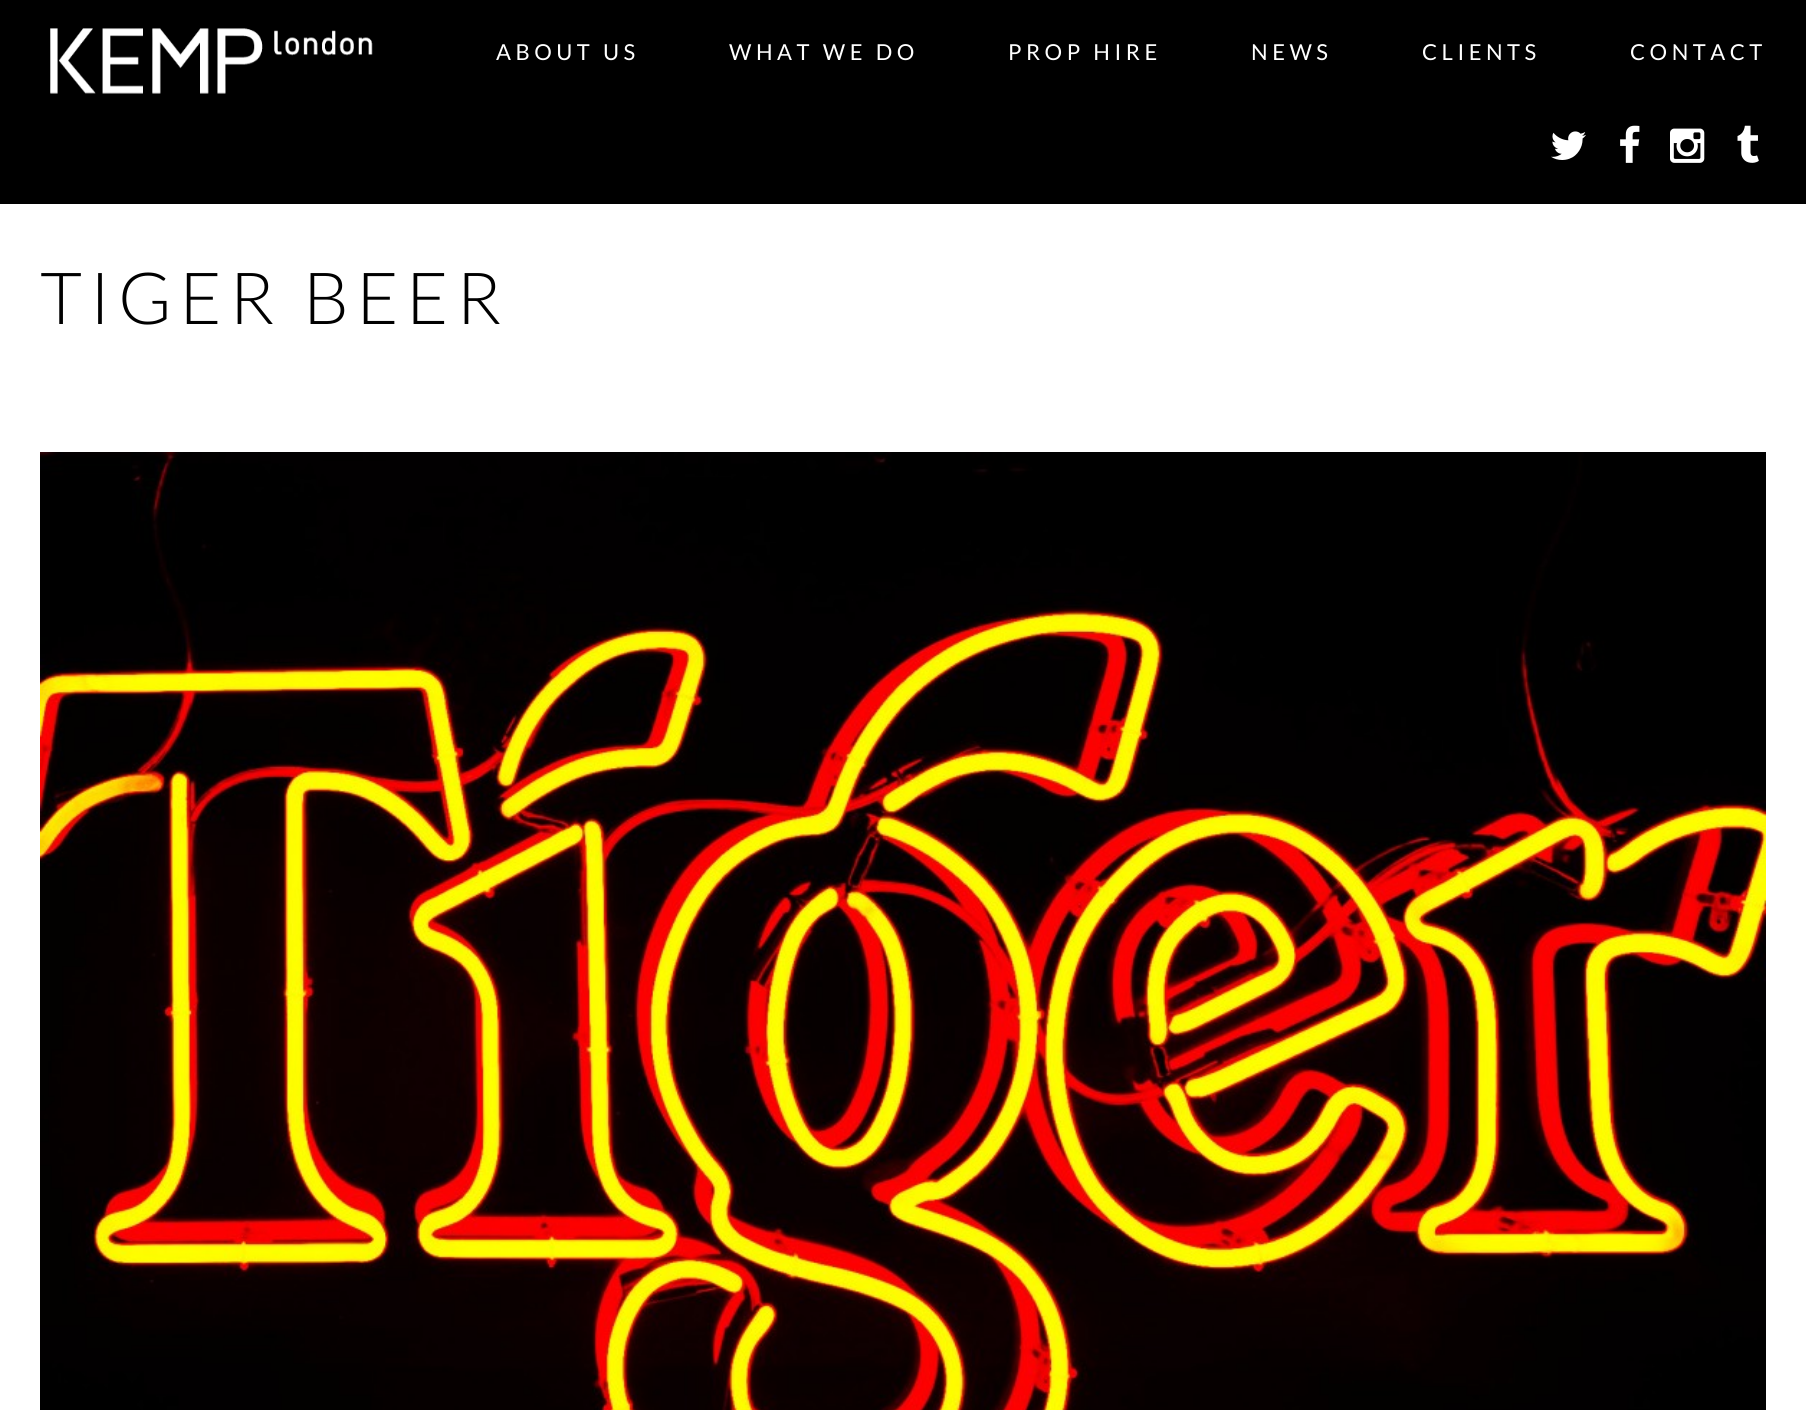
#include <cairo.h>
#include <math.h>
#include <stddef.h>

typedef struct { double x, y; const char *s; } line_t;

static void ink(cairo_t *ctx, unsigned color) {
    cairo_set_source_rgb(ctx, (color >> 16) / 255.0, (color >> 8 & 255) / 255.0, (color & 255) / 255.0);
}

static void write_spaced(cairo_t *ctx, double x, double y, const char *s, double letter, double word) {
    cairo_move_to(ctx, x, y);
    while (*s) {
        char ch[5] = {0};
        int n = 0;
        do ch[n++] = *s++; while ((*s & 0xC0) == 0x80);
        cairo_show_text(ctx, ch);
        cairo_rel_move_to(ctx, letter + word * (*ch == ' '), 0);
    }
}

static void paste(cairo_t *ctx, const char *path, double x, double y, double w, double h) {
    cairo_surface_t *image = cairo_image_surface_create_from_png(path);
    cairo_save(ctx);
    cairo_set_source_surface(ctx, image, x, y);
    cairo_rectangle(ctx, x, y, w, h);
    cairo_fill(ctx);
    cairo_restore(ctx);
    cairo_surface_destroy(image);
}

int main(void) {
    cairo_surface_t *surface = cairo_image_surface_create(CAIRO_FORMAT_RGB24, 1806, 1410);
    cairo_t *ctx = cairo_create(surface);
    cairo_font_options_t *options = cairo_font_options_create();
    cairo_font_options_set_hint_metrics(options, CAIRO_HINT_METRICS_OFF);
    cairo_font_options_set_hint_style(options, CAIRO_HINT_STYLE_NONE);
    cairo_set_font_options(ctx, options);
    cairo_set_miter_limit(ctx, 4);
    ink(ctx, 0xFFFFFF);
    cairo_paint(ctx);
    ink(ctx, 0x000000);
    cairo_rectangle(ctx, 0, 0, 1806, 204);
    cairo_fill(ctx);
    paste(ctx, "media/1.png", 50, 28, 323, 66);
    cairo_select_font_face(ctx, "Lato", CAIRO_FONT_SLANT_NORMAL, CAIRO_FONT_WEIGHT_NORMAL);
    cairo_set_font_size(ctx, 22);
    ink(ctx, 0xFFFFFF);
    {
        static const line_t items[] = {
            {496, 60, "ABOUT US"},
            {729, 60, "WHAT WE DO"},
            {1008, 60, "PROP HIRE"},
            {1251, 60, "NEWS"},
            {1422, 60, "CLIENTS"},
            {1630, 60, "CONTACT"},
        };
        for (size_t i = 0; i < sizeof items / sizeof *items; i++) {
            write_spaced(ctx, items[i].x, items[i].y, items[i].s, 4.5, 0);
        }
    }
    paste(ctx, "media/2.png", 1551, 131, 35, 29);
    paste(ctx, "media/3.png", 1620, 125, 20, 38);
    paste(ctx, "media/4.png", 1670, 128, 35, 35);
    paste(ctx, "media/5.png", 1737, 125, 22, 38);
    cairo_select_font_face(ctx, "Lato Light", CAIRO_FONT_SLANT_NORMAL, CAIRO_FONT_WEIGHT_NORMAL);
    cairo_set_font_size(ctx, 72);
    ink(ctx, 0x000000);
    write_spaced(ctx, 40, 324, "TIGER BEER", 7.25, 0);
    paste(ctx, "media/6.png", 40, 452, 1726, 958);
    cairo_surface_write_to_png(surface, "image.png");
    cairo_font_options_destroy(options);
    cairo_destroy(ctx);
    cairo_surface_destroy(surface);
    return 0;
}
